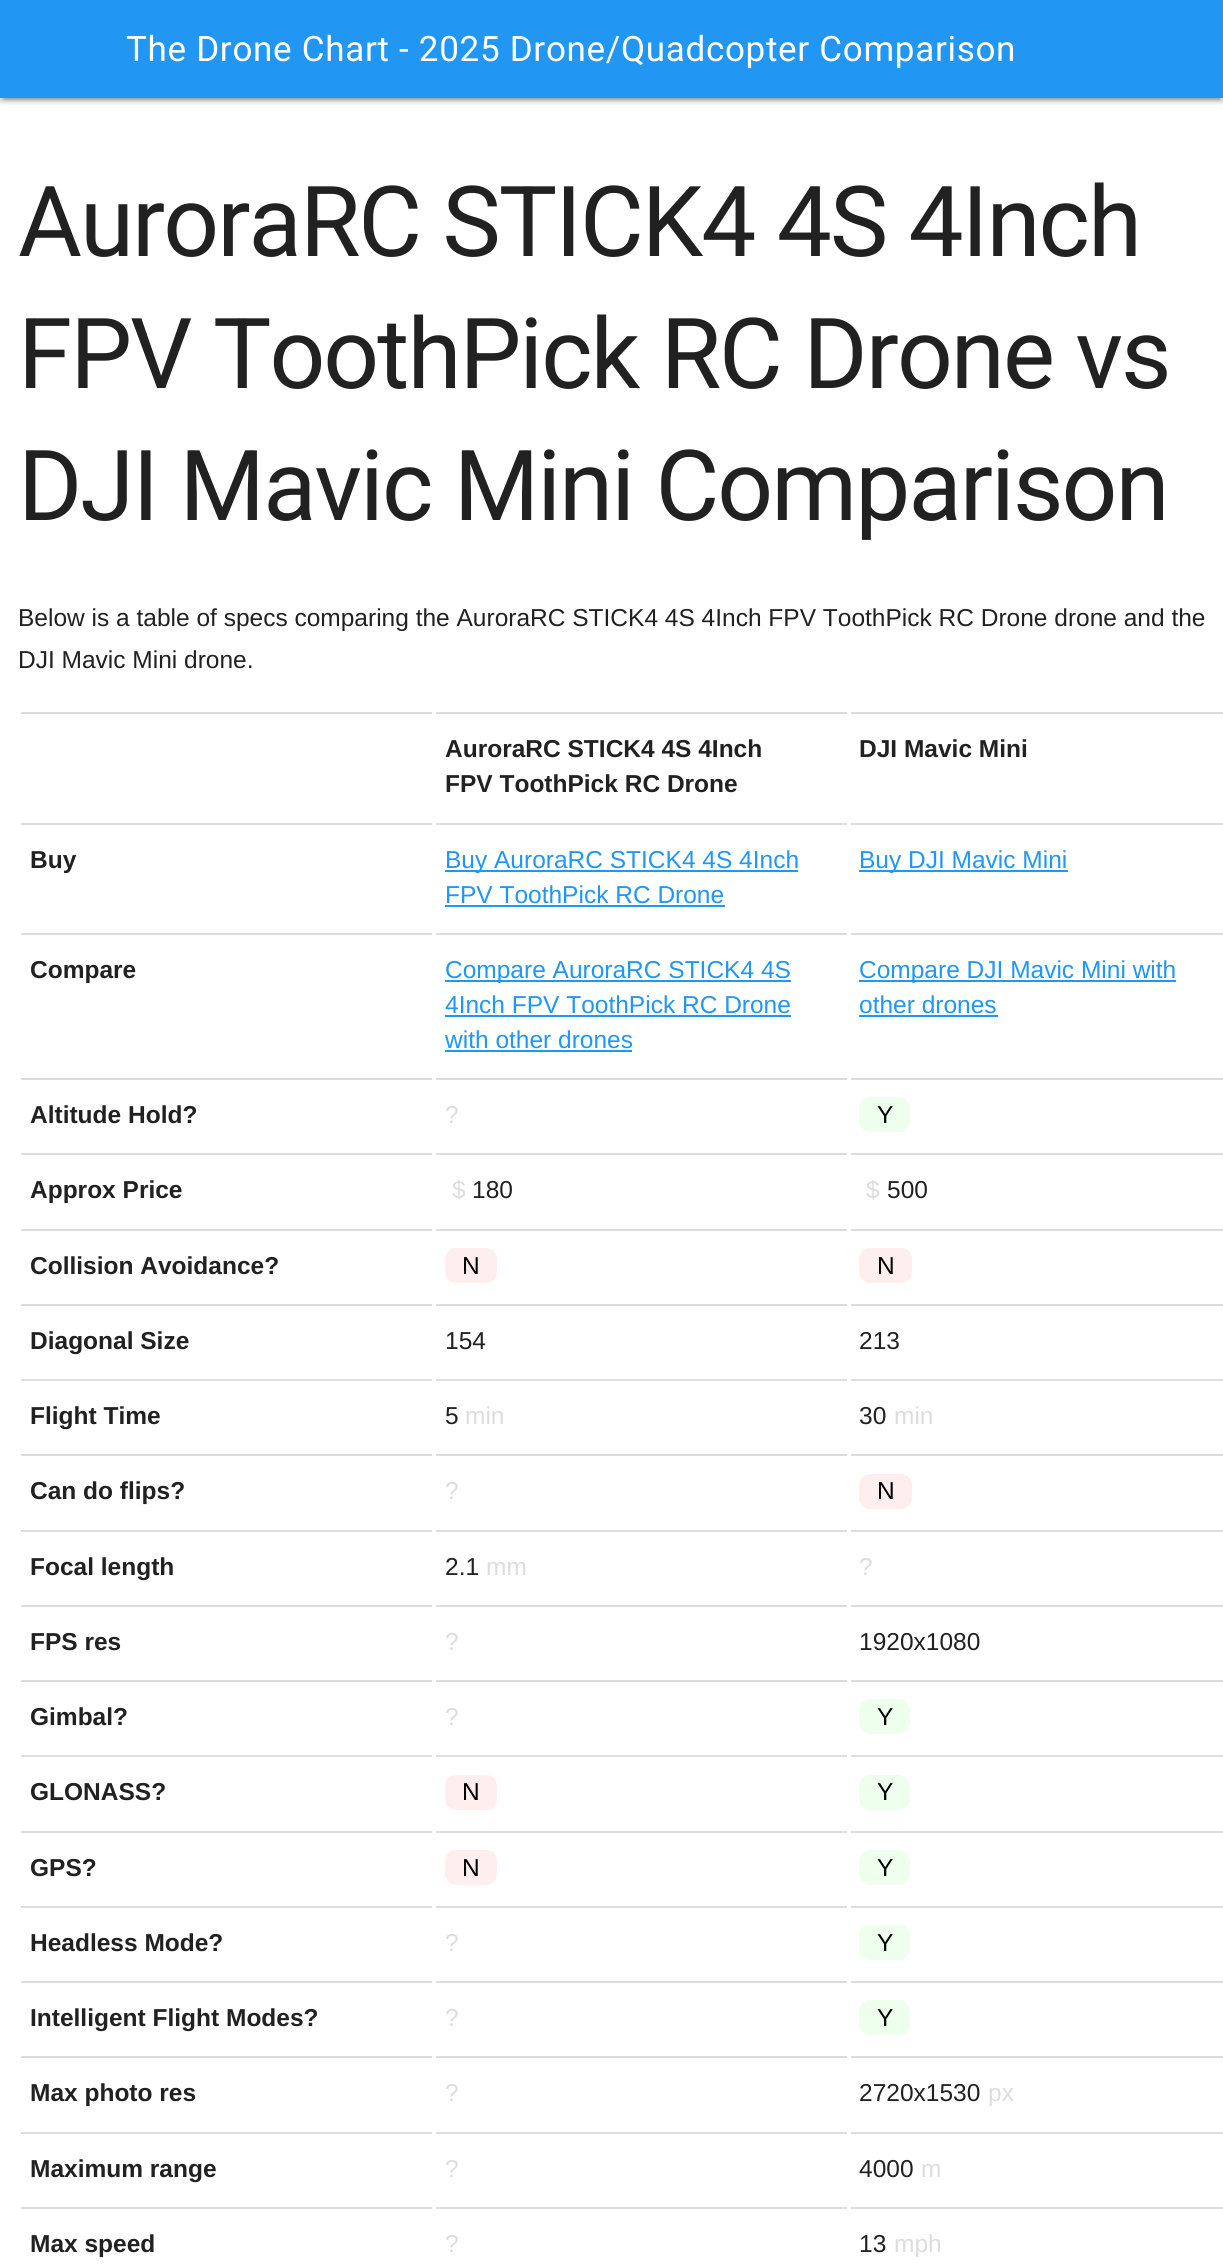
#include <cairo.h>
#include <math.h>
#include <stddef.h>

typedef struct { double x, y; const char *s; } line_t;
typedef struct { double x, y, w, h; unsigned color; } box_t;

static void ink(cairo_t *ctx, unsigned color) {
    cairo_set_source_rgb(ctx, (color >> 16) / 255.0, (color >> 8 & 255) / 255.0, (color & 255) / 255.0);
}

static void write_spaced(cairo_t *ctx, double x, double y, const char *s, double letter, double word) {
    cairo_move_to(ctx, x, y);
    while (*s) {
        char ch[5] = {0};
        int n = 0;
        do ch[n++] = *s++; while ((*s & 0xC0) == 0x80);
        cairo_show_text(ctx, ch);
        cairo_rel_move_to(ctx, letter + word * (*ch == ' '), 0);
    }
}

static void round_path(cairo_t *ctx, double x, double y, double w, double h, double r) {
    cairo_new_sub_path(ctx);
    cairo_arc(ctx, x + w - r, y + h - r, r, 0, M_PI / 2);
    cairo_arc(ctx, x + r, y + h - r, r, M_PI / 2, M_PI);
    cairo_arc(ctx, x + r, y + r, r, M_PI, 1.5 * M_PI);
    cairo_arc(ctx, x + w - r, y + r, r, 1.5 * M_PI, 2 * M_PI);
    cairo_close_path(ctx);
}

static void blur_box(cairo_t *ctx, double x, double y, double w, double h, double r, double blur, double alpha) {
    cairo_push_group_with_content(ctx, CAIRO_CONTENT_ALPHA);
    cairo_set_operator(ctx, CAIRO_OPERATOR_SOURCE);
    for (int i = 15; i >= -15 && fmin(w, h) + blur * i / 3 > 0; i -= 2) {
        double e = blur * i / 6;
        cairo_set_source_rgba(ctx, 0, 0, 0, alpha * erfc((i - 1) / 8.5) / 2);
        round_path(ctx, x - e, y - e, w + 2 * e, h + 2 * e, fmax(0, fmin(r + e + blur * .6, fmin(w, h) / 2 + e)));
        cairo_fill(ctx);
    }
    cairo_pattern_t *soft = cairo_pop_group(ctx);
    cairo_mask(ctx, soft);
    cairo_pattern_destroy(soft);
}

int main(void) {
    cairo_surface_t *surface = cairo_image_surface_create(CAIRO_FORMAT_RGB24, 1223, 2265);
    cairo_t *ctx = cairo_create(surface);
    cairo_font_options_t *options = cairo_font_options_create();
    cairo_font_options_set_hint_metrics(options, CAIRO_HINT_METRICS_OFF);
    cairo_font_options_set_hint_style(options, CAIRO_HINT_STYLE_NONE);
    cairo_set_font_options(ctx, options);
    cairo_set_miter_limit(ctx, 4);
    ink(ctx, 0xFFFFFF);
    cairo_paint(ctx);
    ink(ctx, 0x000000);
    blur_box(ctx, 0, 2, 1223, 98, 0, 4.5, 0.12);
    blur_box(ctx, 4, 9, 1216, 91, 0, 1, 0.2);
    blur_box(ctx, 0, 4, 1223, 98, 0, 2, 0.14);
    ink(ctx, 0x2196F3);
    cairo_rectangle(ctx, 0, 0, 1223, 98);
    cairo_fill(ctx);
    cairo_select_font_face(ctx, "Roboto", CAIRO_FONT_SLANT_NORMAL, CAIRO_FONT_WEIGHT_NORMAL);
    cairo_set_font_size(ctx, 35);
    ink(ctx, 0xFFFFFF);
    write_spaced(ctx, 126, 61, "The Drone Chart - 2025 Drone/Quadcopter Comparison", 0.7, 0);
    cairo_set_font_size(ctx, 98);
    ink(ctx, 0x212121);
    {
        static const line_t items[] = {
            {18, 256, "AuroraRC STICK4 4S 4Inch"},
            {18, 388, "FPV ToothPick RC Drone vs"},
            {18, 520, "DJI Mavic Mini Comparison"},
        };
        for (size_t i = 0; i < sizeof items / sizeof *items; i++) {
            write_spaced(ctx, items[i].x, items[i].y, items[i].s, -1.95, 0);
        }
    }
    cairo_select_font_face(ctx, "Liberation Sans", CAIRO_FONT_SLANT_NORMAL, CAIRO_FONT_WEIGHT_NORMAL);
    cairo_set_font_size(ctx, 24.5);
    cairo_move_to(ctx, 18, 626);
    cairo_show_text(ctx, "Below is a table of specs comparing the AuroraRC STICK4 4S 4Inch FPV ToothPick RC Drone drone and the");
    cairo_move_to(ctx, 18, 668);
    cairo_show_text(ctx, "DJI Mavic Mini drone.");
    ink(ctx, 0xDDDDDD);
    cairo_rectangle(ctx, 21, 712, 411, 2);
    cairo_fill(ctx);
    cairo_rectangle(ctx, 436, 712, 411, 2);
    cairo_fill(ctx);
    cairo_select_font_face(ctx, "Liberation Sans", CAIRO_FONT_SLANT_NORMAL, CAIRO_FONT_WEIGHT_BOLD);
    ink(ctx, 0x212121);
    cairo_move_to(ctx, 445, 757);
    cairo_show_text(ctx, "AuroraRC STICK4 4S 4Inch");
    cairo_move_to(ctx, 445, 792);
    cairo_show_text(ctx, "FPV ToothPick RC Drone");
    ink(ctx, 0xDDDDDD);
    cairo_rectangle(ctx, 851, 712, 372, 2);
    cairo_fill(ctx);
    ink(ctx, 0x212121);
    cairo_move_to(ctx, 859, 757);
    cairo_show_text(ctx, "DJI Mavic Mini");
    ink(ctx, 0xDDDDDD);
    cairo_rectangle(ctx, 21, 823, 411, 2);
    cairo_fill(ctx);
    ink(ctx, 0x212121);
    cairo_move_to(ctx, 30, 868);
    cairo_show_text(ctx, "Buy");
    ink(ctx, 0xDDDDDD);
    cairo_rectangle(ctx, 436, 823, 411, 2);
    cairo_fill(ctx);
    ink(ctx, 0x2196F3);
    cairo_rectangle(ctx, 445, 870, 353, 2);
    cairo_fill(ctx);
    cairo_select_font_face(ctx, "Liberation Sans", CAIRO_FONT_SLANT_NORMAL, CAIRO_FONT_WEIGHT_NORMAL);
    cairo_move_to(ctx, 445, 868);
    cairo_show_text(ctx, "Buy AuroraRC STICK4 4S 4Inch");
    cairo_move_to(ctx, 445, 903);
    cairo_show_text(ctx, "FPV ToothPick RC Drone");
    {
        static const box_t items[] = {
            {445, 905, 280, 2, 0x2196F3},
            {851, 823, 372, 2, 0xDDDDDD},
            {859, 870, 42, 2, 0x2196F3},
        };
        for (size_t i = 0; i < sizeof items / sizeof *items; i++) {
            ink(ctx, items[i].color);
            cairo_rectangle(ctx, items[i].x, items[i].y, items[i].w, items[i].h);
            cairo_fill(ctx);
        }
    }
    cairo_move_to(ctx, 859, 868);
    cairo_show_text(ctx, "Buy DJI Mavic Mini");
    cairo_rectangle(ctx, 901, 870, 167, 2);
    cairo_fill(ctx);
    ink(ctx, 0xDDDDDD);
    cairo_rectangle(ctx, 21, 933, 411, 2);
    cairo_fill(ctx);
    cairo_select_font_face(ctx, "Liberation Sans", CAIRO_FONT_SLANT_NORMAL, CAIRO_FONT_WEIGHT_BOLD);
    ink(ctx, 0x212121);
    cairo_move_to(ctx, 30, 978);
    cairo_show_text(ctx, "Compare");
    ink(ctx, 0xDDDDDD);
    cairo_rectangle(ctx, 436, 933, 411, 2);
    cairo_fill(ctx);
    ink(ctx, 0x2196F3);
    cairo_rectangle(ctx, 445, 980, 346, 2);
    cairo_fill(ctx);
    cairo_select_font_face(ctx, "Liberation Sans", CAIRO_FONT_SLANT_NORMAL, CAIRO_FONT_WEIGHT_NORMAL);
    cairo_move_to(ctx, 445, 978);
    cairo_show_text(ctx, "Compare AuroraRC STICK4 4S");
    cairo_move_to(ctx, 445, 1013);
    cairo_show_text(ctx, "4Inch FPV ToothPick RC Drone");
    cairo_rectangle(ctx, 445, 1015, 346, 2);
    cairo_fill(ctx);
    cairo_move_to(ctx, 445, 1048);
    cairo_show_text(ctx, "with other drones");
    {
        static const box_t items[] = {
            {445, 1050, 187, 2, 0x2196F3},
            {851, 933, 372, 2, 0xDDDDDD},
            {859, 980, 317, 2, 0x2196F3},
        };
        for (size_t i = 0; i < sizeof items / sizeof *items; i++) {
            ink(ctx, items[i].color);
            cairo_rectangle(ctx, items[i].x, items[i].y, items[i].w, items[i].h);
            cairo_fill(ctx);
        }
    }
    cairo_move_to(ctx, 859, 978);
    cairo_show_text(ctx, "Compare DJI Mavic Mini with");
    cairo_move_to(ctx, 859, 1013);
    cairo_show_text(ctx, "other drones");
    cairo_rectangle(ctx, 859, 1015, 139, 2);
    cairo_fill(ctx);
    ink(ctx, 0xDDDDDD);
    cairo_rectangle(ctx, 21, 1078, 411, 2);
    cairo_fill(ctx);
    cairo_select_font_face(ctx, "Liberation Sans", CAIRO_FONT_SLANT_NORMAL, CAIRO_FONT_WEIGHT_BOLD);
    ink(ctx, 0x212121);
    cairo_move_to(ctx, 30, 1123);
    cairo_show_text(ctx, "Altitude Hold?");
    ink(ctx, 0xDDDDDD);
    cairo_rectangle(ctx, 436, 1078, 411, 2);
    cairo_fill(ctx);
    cairo_select_font_face(ctx, "Liberation Sans", CAIRO_FONT_SLANT_NORMAL, CAIRO_FONT_WEIGHT_NORMAL);
    cairo_move_to(ctx, 445, 1123);
    cairo_show_text(ctx, "?");
    cairo_rectangle(ctx, 851, 1078, 372, 2);
    cairo_fill(ctx);
    ink(ctx, 0xEEFFEE);
    round_path(ctx, 859, 1097, 51, 35, 11);
    cairo_fill(ctx);
    ink(ctx, 0x000000);
    cairo_move_to(ctx, 877, 1123);
    cairo_show_text(ctx, "Y");
    ink(ctx, 0xDDDDDD);
    cairo_rectangle(ctx, 21, 1153, 411, 2);
    cairo_fill(ctx);
    cairo_select_font_face(ctx, "Liberation Sans", CAIRO_FONT_SLANT_NORMAL, CAIRO_FONT_WEIGHT_BOLD);
    ink(ctx, 0x212121);
    cairo_move_to(ctx, 30, 1198);
    cairo_show_text(ctx, "Approx Price");
    ink(ctx, 0xDDDDDD);
    cairo_rectangle(ctx, 436, 1153, 411, 2);
    cairo_fill(ctx);
    cairo_select_font_face(ctx, "Liberation Sans", CAIRO_FONT_SLANT_NORMAL, CAIRO_FONT_WEIGHT_NORMAL);
    cairo_move_to(ctx, 452, 1198);
    cairo_show_text(ctx, "$");
    ink(ctx, 0x212121);
    cairo_move_to(ctx, 472, 1198);
    cairo_show_text(ctx, "180");
    ink(ctx, 0xDDDDDD);
    cairo_rectangle(ctx, 851, 1153, 372, 2);
    cairo_fill(ctx);
    cairo_move_to(ctx, 866, 1198);
    cairo_show_text(ctx, "$");
    ink(ctx, 0x212121);
    cairo_move_to(ctx, 887, 1198);
    cairo_show_text(ctx, "500");
    ink(ctx, 0xDDDDDD);
    cairo_rectangle(ctx, 21, 1229, 411, 2);
    cairo_fill(ctx);
    cairo_select_font_face(ctx, "Liberation Sans", CAIRO_FONT_SLANT_NORMAL, CAIRO_FONT_WEIGHT_BOLD);
    ink(ctx, 0x212121);
    cairo_move_to(ctx, 30, 1274);
    cairo_show_text(ctx, "Collision Avoidance?");
    ink(ctx, 0xDDDDDD);
    cairo_rectangle(ctx, 436, 1229, 411, 2);
    cairo_fill(ctx);
    ink(ctx, 0xFFEEEE);
    round_path(ctx, 445, 1248, 52, 35, 11);
    cairo_fill(ctx);
    cairo_select_font_face(ctx, "Liberation Sans", CAIRO_FONT_SLANT_NORMAL, CAIRO_FONT_WEIGHT_NORMAL);
    ink(ctx, 0x000000);
    cairo_move_to(ctx, 462, 1274);
    cairo_show_text(ctx, "N");
    ink(ctx, 0xDDDDDD);
    cairo_rectangle(ctx, 851, 1229, 372, 2);
    cairo_fill(ctx);
    ink(ctx, 0xFFEEEE);
    round_path(ctx, 859, 1248, 53, 35, 11);
    cairo_fill(ctx);
    ink(ctx, 0x000000);
    cairo_move_to(ctx, 877, 1274);
    cairo_show_text(ctx, "N");
    ink(ctx, 0xDDDDDD);
    cairo_rectangle(ctx, 21, 1304, 411, 2);
    cairo_fill(ctx);
    cairo_select_font_face(ctx, "Liberation Sans", CAIRO_FONT_SLANT_NORMAL, CAIRO_FONT_WEIGHT_BOLD);
    ink(ctx, 0x212121);
    cairo_move_to(ctx, 30, 1349);
    cairo_show_text(ctx, "Diagonal Size");
    ink(ctx, 0xDDDDDD);
    cairo_rectangle(ctx, 436, 1304, 411, 2);
    cairo_fill(ctx);
    cairo_select_font_face(ctx, "Liberation Sans", CAIRO_FONT_SLANT_NORMAL, CAIRO_FONT_WEIGHT_NORMAL);
    ink(ctx, 0x212121);
    cairo_move_to(ctx, 445, 1349);
    cairo_show_text(ctx, "154");
    ink(ctx, 0xDDDDDD);
    cairo_rectangle(ctx, 851, 1304, 372, 2);
    cairo_fill(ctx);
    ink(ctx, 0x212121);
    cairo_move_to(ctx, 859, 1349);
    cairo_show_text(ctx, "213");
    ink(ctx, 0xDDDDDD);
    cairo_rectangle(ctx, 21, 1379, 411, 2);
    cairo_fill(ctx);
    cairo_select_font_face(ctx, "Liberation Sans", CAIRO_FONT_SLANT_NORMAL, CAIRO_FONT_WEIGHT_BOLD);
    ink(ctx, 0x212121);
    cairo_move_to(ctx, 30, 1424);
    cairo_show_text(ctx, "Flight Time");
    ink(ctx, 0xDDDDDD);
    cairo_rectangle(ctx, 436, 1379, 411, 2);
    cairo_fill(ctx);
    cairo_select_font_face(ctx, "Liberation Sans", CAIRO_FONT_SLANT_NORMAL, CAIRO_FONT_WEIGHT_NORMAL);
    ink(ctx, 0x212121);
    cairo_move_to(ctx, 445, 1424);
    cairo_show_text(ctx, "5");
    ink(ctx, 0xDDDDDD);
    cairo_move_to(ctx, 465, 1424);
    cairo_show_text(ctx, "min");
    cairo_rectangle(ctx, 851, 1379, 372, 2);
    cairo_fill(ctx);
    ink(ctx, 0x212121);
    cairo_move_to(ctx, 859, 1424);
    cairo_show_text(ctx, "30");
    ink(ctx, 0xDDDDDD);
    cairo_move_to(ctx, 894, 1424);
    cairo_show_text(ctx, "min");
    cairo_rectangle(ctx, 21, 1454, 411, 2);
    cairo_fill(ctx);
    cairo_select_font_face(ctx, "Liberation Sans", CAIRO_FONT_SLANT_NORMAL, CAIRO_FONT_WEIGHT_BOLD);
    ink(ctx, 0x212121);
    cairo_move_to(ctx, 30, 1499);
    cairo_show_text(ctx, "Can do flips?");
    ink(ctx, 0xDDDDDD);
    cairo_rectangle(ctx, 436, 1454, 411, 2);
    cairo_fill(ctx);
    cairo_select_font_face(ctx, "Liberation Sans", CAIRO_FONT_SLANT_NORMAL, CAIRO_FONT_WEIGHT_NORMAL);
    cairo_move_to(ctx, 445, 1499);
    cairo_show_text(ctx, "?");
    cairo_rectangle(ctx, 851, 1454, 372, 2);
    cairo_fill(ctx);
    ink(ctx, 0xFFEEEE);
    round_path(ctx, 859, 1474, 53, 35, 11);
    cairo_fill(ctx);
    ink(ctx, 0x000000);
    cairo_move_to(ctx, 877, 1499);
    cairo_show_text(ctx, "N");
    ink(ctx, 0xDDDDDD);
    cairo_rectangle(ctx, 21, 1530, 411, 2);
    cairo_fill(ctx);
    cairo_select_font_face(ctx, "Liberation Sans", CAIRO_FONT_SLANT_NORMAL, CAIRO_FONT_WEIGHT_BOLD);
    ink(ctx, 0x212121);
    cairo_move_to(ctx, 30, 1575);
    cairo_show_text(ctx, "Focal length");
    ink(ctx, 0xDDDDDD);
    cairo_rectangle(ctx, 436, 1530, 411, 2);
    cairo_fill(ctx);
    cairo_select_font_face(ctx, "Liberation Sans", CAIRO_FONT_SLANT_NORMAL, CAIRO_FONT_WEIGHT_NORMAL);
    ink(ctx, 0x212121);
    cairo_move_to(ctx, 445, 1575);
    cairo_show_text(ctx, "2.1");
    ink(ctx, 0xDDDDDD);
    cairo_move_to(ctx, 486, 1575);
    cairo_show_text(ctx, "mm");
    cairo_rectangle(ctx, 851, 1530, 372, 2);
    cairo_fill(ctx);
    cairo_move_to(ctx, 859, 1575);
    cairo_show_text(ctx, "?");
    cairo_rectangle(ctx, 21, 1605, 411, 2);
    cairo_fill(ctx);
    cairo_select_font_face(ctx, "Liberation Sans", CAIRO_FONT_SLANT_NORMAL, CAIRO_FONT_WEIGHT_BOLD);
    ink(ctx, 0x212121);
    cairo_move_to(ctx, 30, 1650);
    cairo_show_text(ctx, "FPS res");
    ink(ctx, 0xDDDDDD);
    cairo_rectangle(ctx, 436, 1605, 411, 2);
    cairo_fill(ctx);
    cairo_select_font_face(ctx, "Liberation Sans", CAIRO_FONT_SLANT_NORMAL, CAIRO_FONT_WEIGHT_NORMAL);
    cairo_move_to(ctx, 445, 1650);
    cairo_show_text(ctx, "?");
    cairo_rectangle(ctx, 851, 1605, 372, 2);
    cairo_fill(ctx);
    ink(ctx, 0x212121);
    cairo_move_to(ctx, 859, 1650);
    cairo_show_text(ctx, "1920x1080");
    ink(ctx, 0xDDDDDD);
    cairo_rectangle(ctx, 21, 1680, 411, 2);
    cairo_fill(ctx);
    cairo_select_font_face(ctx, "Liberation Sans", CAIRO_FONT_SLANT_NORMAL, CAIRO_FONT_WEIGHT_BOLD);
    ink(ctx, 0x212121);
    cairo_move_to(ctx, 30, 1725);
    cairo_show_text(ctx, "Gimbal?");
    ink(ctx, 0xDDDDDD);
    cairo_rectangle(ctx, 436, 1680, 411, 2);
    cairo_fill(ctx);
    cairo_select_font_face(ctx, "Liberation Sans", CAIRO_FONT_SLANT_NORMAL, CAIRO_FONT_WEIGHT_NORMAL);
    cairo_move_to(ctx, 445, 1725);
    cairo_show_text(ctx, "?");
    cairo_rectangle(ctx, 851, 1680, 372, 2);
    cairo_fill(ctx);
    ink(ctx, 0xEEFFEE);
    round_path(ctx, 859, 1699, 51, 35, 11);
    cairo_fill(ctx);
    ink(ctx, 0x000000);
    cairo_move_to(ctx, 877, 1725);
    cairo_show_text(ctx, "Y");
    ink(ctx, 0xDDDDDD);
    cairo_rectangle(ctx, 21, 1755, 411, 2);
    cairo_fill(ctx);
    cairo_select_font_face(ctx, "Liberation Sans", CAIRO_FONT_SLANT_NORMAL, CAIRO_FONT_WEIGHT_BOLD);
    ink(ctx, 0x212121);
    cairo_move_to(ctx, 30, 1800);
    cairo_show_text(ctx, "GLONASS?");
    ink(ctx, 0xDDDDDD);
    cairo_rectangle(ctx, 436, 1755, 411, 2);
    cairo_fill(ctx);
    ink(ctx, 0xFFEEEE);
    round_path(ctx, 445, 1775, 52, 35, 11);
    cairo_fill(ctx);
    cairo_select_font_face(ctx, "Liberation Sans", CAIRO_FONT_SLANT_NORMAL, CAIRO_FONT_WEIGHT_NORMAL);
    ink(ctx, 0x000000);
    cairo_move_to(ctx, 462, 1800);
    cairo_show_text(ctx, "N");
    ink(ctx, 0xDDDDDD);
    cairo_rectangle(ctx, 851, 1755, 372, 2);
    cairo_fill(ctx);
    ink(ctx, 0xEEFFEE);
    round_path(ctx, 859, 1775, 51, 35, 11);
    cairo_fill(ctx);
    ink(ctx, 0x000000);
    cairo_move_to(ctx, 877, 1800);
    cairo_show_text(ctx, "Y");
    ink(ctx, 0xDDDDDD);
    cairo_rectangle(ctx, 21, 1831, 411, 2);
    cairo_fill(ctx);
    cairo_select_font_face(ctx, "Liberation Sans", CAIRO_FONT_SLANT_NORMAL, CAIRO_FONT_WEIGHT_BOLD);
    ink(ctx, 0x212121);
    cairo_move_to(ctx, 30, 1876);
    cairo_show_text(ctx, "GPS?");
    ink(ctx, 0xDDDDDD);
    cairo_rectangle(ctx, 436, 1831, 411, 2);
    cairo_fill(ctx);
    ink(ctx, 0xFFEEEE);
    round_path(ctx, 445, 1850, 52, 35, 11);
    cairo_fill(ctx);
    cairo_select_font_face(ctx, "Liberation Sans", CAIRO_FONT_SLANT_NORMAL, CAIRO_FONT_WEIGHT_NORMAL);
    ink(ctx, 0x000000);
    cairo_move_to(ctx, 462, 1876);
    cairo_show_text(ctx, "N");
    ink(ctx, 0xDDDDDD);
    cairo_rectangle(ctx, 851, 1831, 372, 2);
    cairo_fill(ctx);
    ink(ctx, 0xEEFFEE);
    round_path(ctx, 859, 1850, 51, 35, 11);
    cairo_fill(ctx);
    ink(ctx, 0x000000);
    cairo_move_to(ctx, 877, 1876);
    cairo_show_text(ctx, "Y");
    ink(ctx, 0xDDDDDD);
    cairo_rectangle(ctx, 21, 1906, 411, 2);
    cairo_fill(ctx);
    cairo_select_font_face(ctx, "Liberation Sans", CAIRO_FONT_SLANT_NORMAL, CAIRO_FONT_WEIGHT_BOLD);
    ink(ctx, 0x212121);
    cairo_move_to(ctx, 30, 1951);
    cairo_show_text(ctx, "Headless Mode?");
    ink(ctx, 0xDDDDDD);
    cairo_rectangle(ctx, 436, 1906, 411, 2);
    cairo_fill(ctx);
    cairo_select_font_face(ctx, "Liberation Sans", CAIRO_FONT_SLANT_NORMAL, CAIRO_FONT_WEIGHT_NORMAL);
    cairo_move_to(ctx, 445, 1951);
    cairo_show_text(ctx, "?");
    cairo_rectangle(ctx, 851, 1906, 372, 2);
    cairo_fill(ctx);
    ink(ctx, 0xEEFFEE);
    round_path(ctx, 859, 1925, 51, 35, 11);
    cairo_fill(ctx);
    ink(ctx, 0x000000);
    cairo_move_to(ctx, 877, 1951);
    cairo_show_text(ctx, "Y");
    ink(ctx, 0xDDDDDD);
    cairo_rectangle(ctx, 21, 1981, 411, 2);
    cairo_fill(ctx);
    cairo_select_font_face(ctx, "Liberation Sans", CAIRO_FONT_SLANT_NORMAL, CAIRO_FONT_WEIGHT_BOLD);
    ink(ctx, 0x212121);
    cairo_move_to(ctx, 30, 2026);
    cairo_show_text(ctx, "Intelligent Flight Modes?");
    ink(ctx, 0xDDDDDD);
    cairo_rectangle(ctx, 436, 1981, 411, 2);
    cairo_fill(ctx);
    cairo_select_font_face(ctx, "Liberation Sans", CAIRO_FONT_SLANT_NORMAL, CAIRO_FONT_WEIGHT_NORMAL);
    cairo_move_to(ctx, 445, 2026);
    cairo_show_text(ctx, "?");
    cairo_rectangle(ctx, 851, 1981, 372, 2);
    cairo_fill(ctx);
    ink(ctx, 0xEEFFEE);
    round_path(ctx, 859, 2000, 51, 35, 11);
    cairo_fill(ctx);
    ink(ctx, 0x000000);
    cairo_move_to(ctx, 877, 2026);
    cairo_show_text(ctx, "Y");
    ink(ctx, 0xDDDDDD);
    cairo_rectangle(ctx, 21, 2056, 411, 2);
    cairo_fill(ctx);
    cairo_select_font_face(ctx, "Liberation Sans", CAIRO_FONT_SLANT_NORMAL, CAIRO_FONT_WEIGHT_BOLD);
    ink(ctx, 0x212121);
    cairo_move_to(ctx, 30, 2101);
    cairo_show_text(ctx, "Max photo res");
    ink(ctx, 0xDDDDDD);
    cairo_rectangle(ctx, 436, 2056, 411, 2);
    cairo_fill(ctx);
    cairo_select_font_face(ctx, "Liberation Sans", CAIRO_FONT_SLANT_NORMAL, CAIRO_FONT_WEIGHT_NORMAL);
    cairo_move_to(ctx, 445, 2101);
    cairo_show_text(ctx, "?");
    cairo_rectangle(ctx, 851, 2056, 372, 2);
    cairo_fill(ctx);
    ink(ctx, 0x212121);
    cairo_move_to(ctx, 859, 2101);
    cairo_show_text(ctx, "2720x1530");
    ink(ctx, 0xDDDDDD);
    cairo_move_to(ctx, 988, 2101);
    cairo_show_text(ctx, "px");
    cairo_rectangle(ctx, 21, 2132, 411, 2);
    cairo_fill(ctx);
    cairo_select_font_face(ctx, "Liberation Sans", CAIRO_FONT_SLANT_NORMAL, CAIRO_FONT_WEIGHT_BOLD);
    ink(ctx, 0x212121);
    cairo_move_to(ctx, 30, 2177);
    cairo_show_text(ctx, "Maximum range");
    ink(ctx, 0xDDDDDD);
    cairo_rectangle(ctx, 436, 2132, 411, 2);
    cairo_fill(ctx);
    cairo_select_font_face(ctx, "Liberation Sans", CAIRO_FONT_SLANT_NORMAL, CAIRO_FONT_WEIGHT_NORMAL);
    cairo_move_to(ctx, 445, 2177);
    cairo_show_text(ctx, "?");
    cairo_rectangle(ctx, 851, 2132, 372, 2);
    cairo_fill(ctx);
    ink(ctx, 0x212121);
    cairo_move_to(ctx, 859, 2177);
    cairo_show_text(ctx, "4000");
    ink(ctx, 0xDDDDDD);
    cairo_move_to(ctx, 921, 2177);
    cairo_show_text(ctx, "m");
    cairo_rectangle(ctx, 21, 2207, 411, 2);
    cairo_fill(ctx);
    cairo_select_font_face(ctx, "Liberation Sans", CAIRO_FONT_SLANT_NORMAL, CAIRO_FONT_WEIGHT_BOLD);
    ink(ctx, 0x212121);
    cairo_move_to(ctx, 30, 2252);
    cairo_show_text(ctx, "Max speed");
    ink(ctx, 0xDDDDDD);
    cairo_rectangle(ctx, 436, 2207, 411, 2);
    cairo_fill(ctx);
    cairo_select_font_face(ctx, "Liberation Sans", CAIRO_FONT_SLANT_NORMAL, CAIRO_FONT_WEIGHT_NORMAL);
    cairo_move_to(ctx, 445, 2252);
    cairo_show_text(ctx, "?");
    cairo_rectangle(ctx, 851, 2207, 372, 2);
    cairo_fill(ctx);
    ink(ctx, 0x212121);
    cairo_move_to(ctx, 859, 2252);
    cairo_show_text(ctx, "13");
    ink(ctx, 0xDDDDDD);
    cairo_move_to(ctx, 894, 2252);
    cairo_show_text(ctx, "mph");
    cairo_surface_write_to_png(surface, "image.png");
    cairo_font_options_destroy(options);
    cairo_destroy(ctx);
    cairo_surface_destroy(surface);
    return 0;
}
